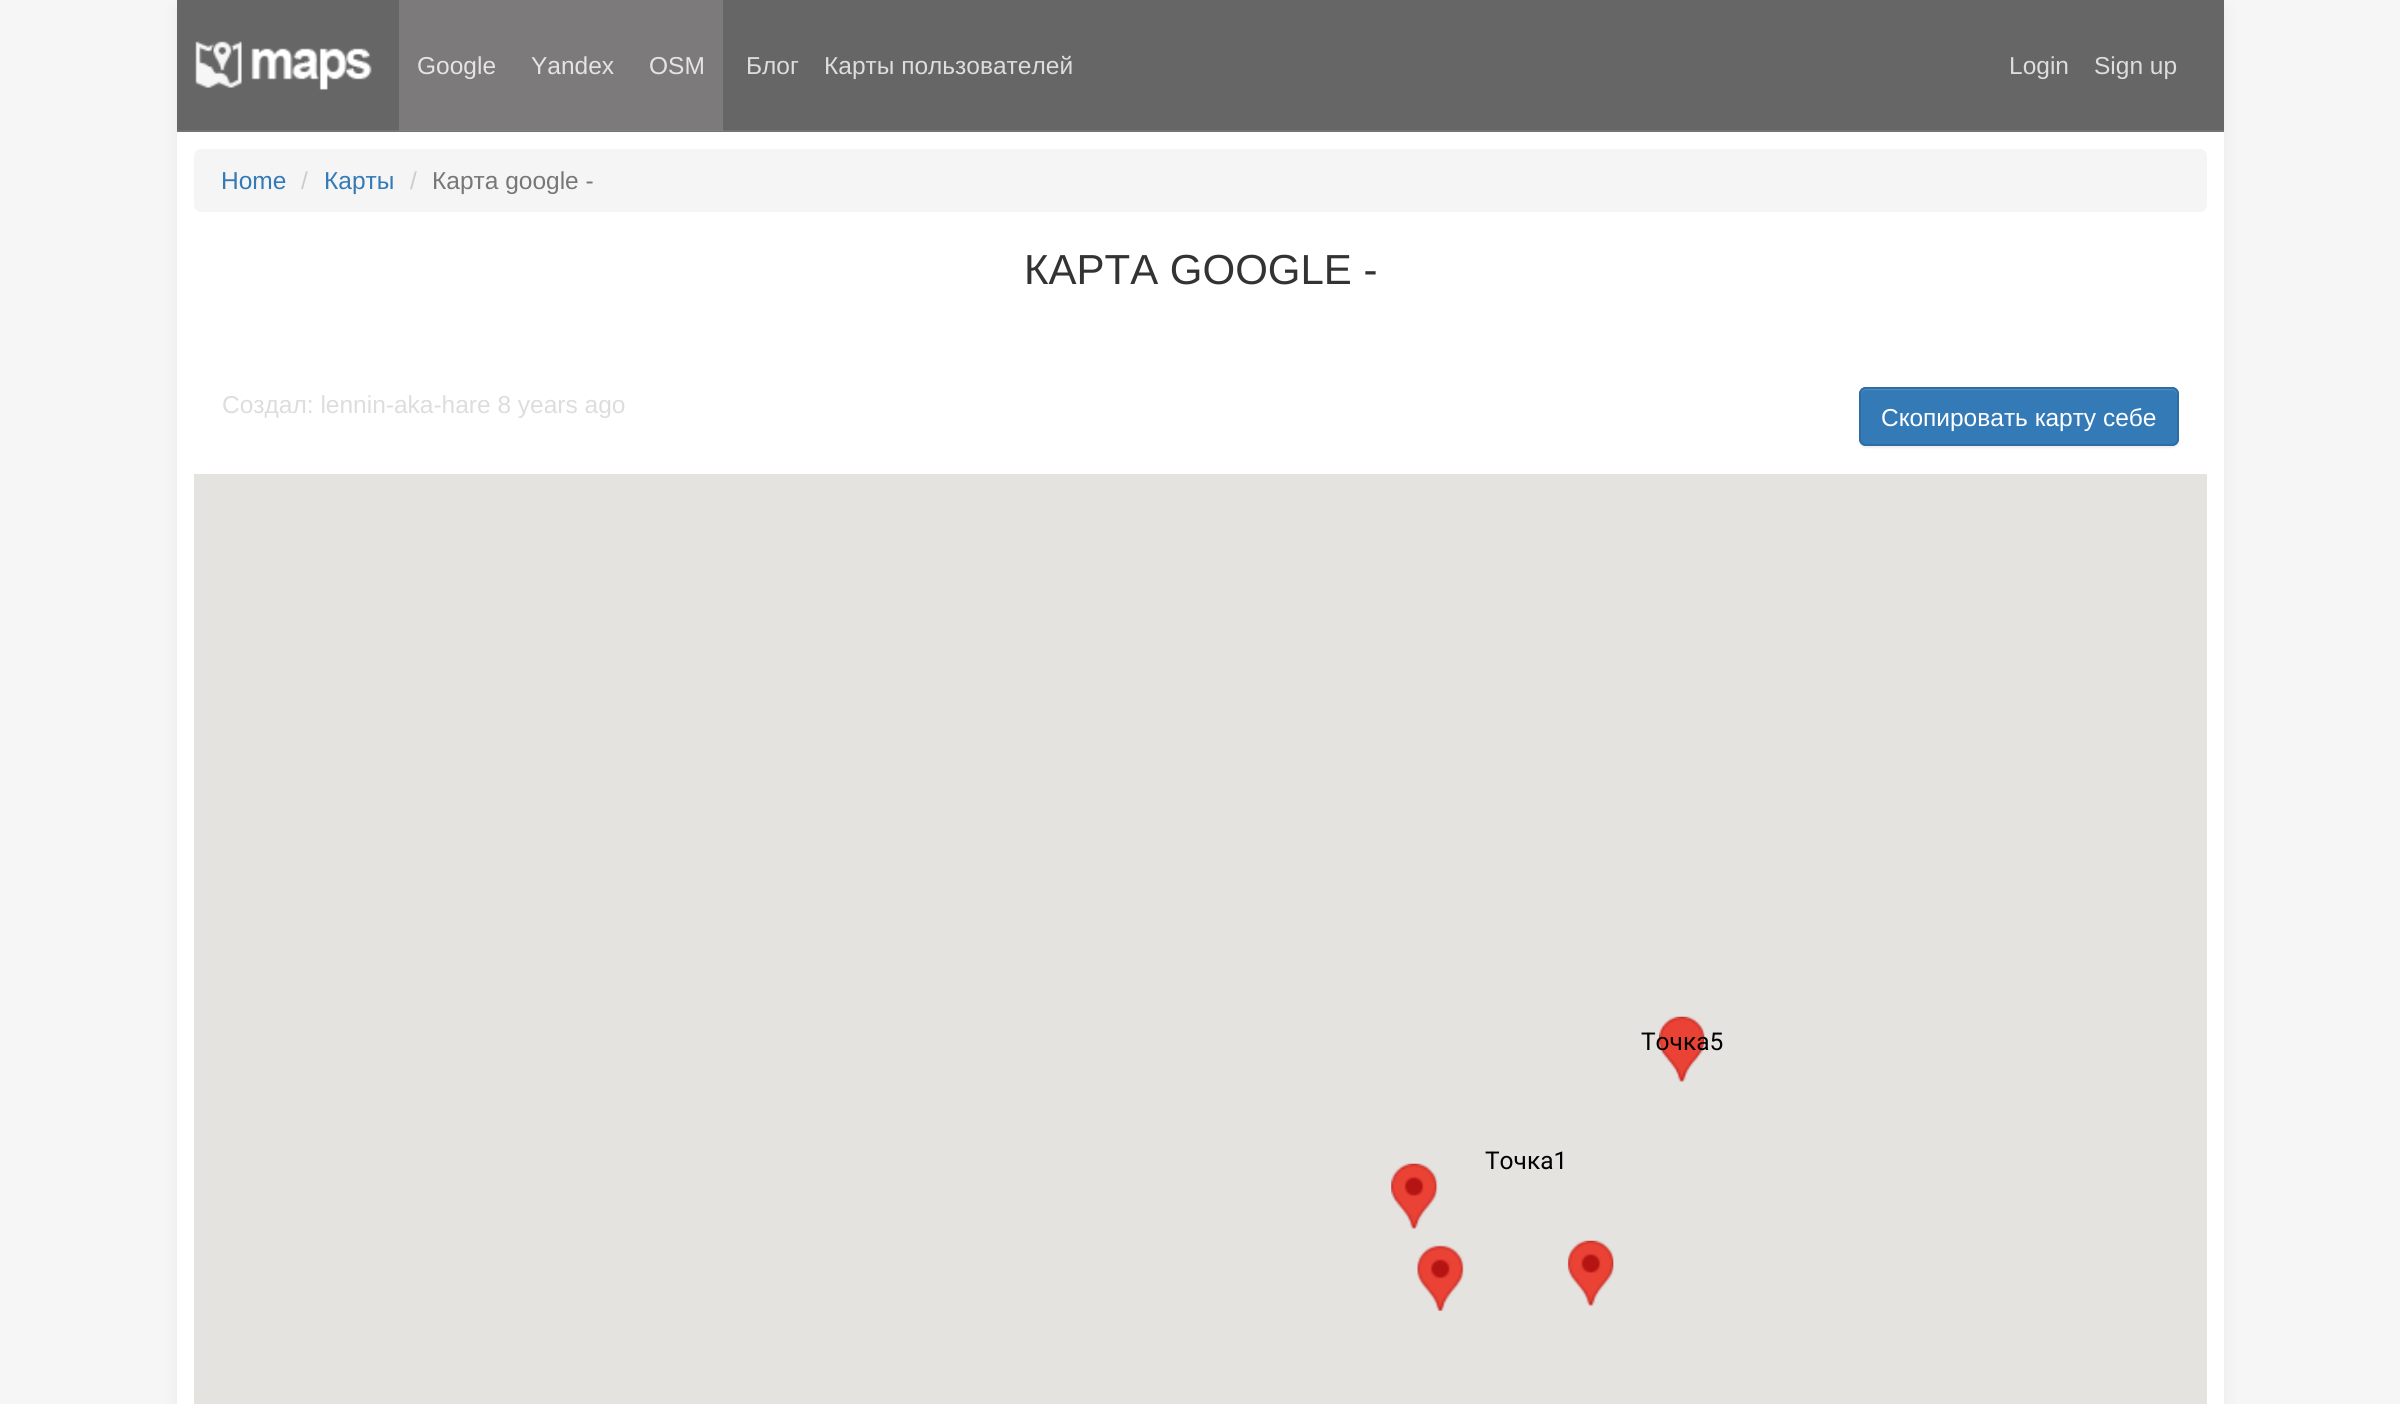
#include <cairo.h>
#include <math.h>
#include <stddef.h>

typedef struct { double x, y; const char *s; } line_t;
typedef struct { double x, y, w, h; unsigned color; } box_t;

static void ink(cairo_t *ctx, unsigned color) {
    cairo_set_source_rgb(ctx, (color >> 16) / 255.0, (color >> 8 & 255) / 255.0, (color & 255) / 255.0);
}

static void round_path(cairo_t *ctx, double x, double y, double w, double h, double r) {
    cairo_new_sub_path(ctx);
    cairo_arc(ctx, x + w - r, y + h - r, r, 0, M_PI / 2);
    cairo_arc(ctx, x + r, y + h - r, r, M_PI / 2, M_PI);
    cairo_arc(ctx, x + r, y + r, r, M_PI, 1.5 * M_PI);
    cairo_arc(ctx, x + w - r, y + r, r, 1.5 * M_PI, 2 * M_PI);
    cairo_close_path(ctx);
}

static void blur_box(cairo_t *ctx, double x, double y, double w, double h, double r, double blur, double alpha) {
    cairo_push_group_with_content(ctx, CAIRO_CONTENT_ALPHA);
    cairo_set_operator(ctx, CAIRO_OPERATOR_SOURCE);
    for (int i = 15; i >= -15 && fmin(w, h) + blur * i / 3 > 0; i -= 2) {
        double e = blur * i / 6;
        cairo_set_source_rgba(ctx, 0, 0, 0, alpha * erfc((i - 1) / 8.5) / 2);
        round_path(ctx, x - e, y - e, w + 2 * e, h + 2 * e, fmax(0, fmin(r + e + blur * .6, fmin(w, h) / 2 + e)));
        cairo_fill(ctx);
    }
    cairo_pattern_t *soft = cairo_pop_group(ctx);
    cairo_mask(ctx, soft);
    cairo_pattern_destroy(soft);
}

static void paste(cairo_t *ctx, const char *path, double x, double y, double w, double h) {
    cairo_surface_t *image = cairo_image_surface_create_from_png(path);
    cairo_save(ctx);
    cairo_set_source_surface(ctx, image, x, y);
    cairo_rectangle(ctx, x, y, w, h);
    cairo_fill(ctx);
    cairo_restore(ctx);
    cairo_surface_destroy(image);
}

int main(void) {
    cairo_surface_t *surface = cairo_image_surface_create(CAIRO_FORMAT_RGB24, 2400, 1404);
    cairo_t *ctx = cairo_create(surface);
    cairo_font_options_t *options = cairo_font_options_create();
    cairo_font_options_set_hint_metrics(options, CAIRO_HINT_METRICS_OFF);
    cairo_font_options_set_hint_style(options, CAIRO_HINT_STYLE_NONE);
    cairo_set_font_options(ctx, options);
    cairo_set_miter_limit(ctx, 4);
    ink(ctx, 0xF6F6F6);
    cairo_paint(ctx);
    ink(ctx, 0x000000);
    blur_box(ctx, 177, 9, 2047, 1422, 0, 9, 0.05);
    {
        static const box_t items[] = {
            {177, 0, 2047, 130, 0x666666},
            {399, 0, 324, 130, 0x7D7A7C},
            {177, 130, 2047, 2, 0x737373},
            {399, 130, 324, 1, 0x858284},
        };
        for (size_t i = 0; i < sizeof items / sizeof *items; i++) {
            ink(ctx, items[i].color);
            cairo_rectangle(ctx, items[i].x, items[i].y, items[i].w, items[i].h);
            cairo_fill(ctx);
        }
    }
    paste(ctx, "media/1.png", 195, 41, 177, 49);
    cairo_select_font_face(ctx, "Liberation Sans", CAIRO_FONT_SLANT_NORMAL, CAIRO_FONT_WEIGHT_NORMAL);
    cairo_set_font_size(ctx, 24.5);
    ink(ctx, 0xE5E4E5);
    {
        static const line_t items[] = {
            {417, 74, "Google"},
            {531, 74, "Yandex"},
            {649, 74, "OSM"},
        };
        for (size_t i = 0; i < sizeof items / sizeof *items; i++) {
            cairo_move_to(ctx, items[i].x, items[i].y);
            cairo_show_text(ctx, items[i].s);
        }
    }
    ink(ctx, 0xDDDDDD);
    {
        static const line_t items[] = {
            {746, 74, "Блог"},
            {824, 74, "Карты пользователей"},
            {2009, 74, "Login"},
            {2094, 74, "Sign up"},
        };
        for (size_t i = 0; i < sizeof items / sizeof *items; i++) {
            cairo_move_to(ctx, items[i].x, items[i].y);
            cairo_show_text(ctx, items[i].s);
        }
    }
    ink(ctx, 0xFFFFFF);
    cairo_rectangle(ctx, 177, 132, 2047, 1272);
    cairo_fill(ctx);
    ink(ctx, 0xF5F5F5);
    round_path(ctx, 194, 149, 2013, 63, 7);
    cairo_fill(ctx);
    ink(ctx, 0x337AB7);
    cairo_move_to(ctx, 221, 189);
    cairo_show_text(ctx, "Home");
    ink(ctx, 0xCCCCCC);
    cairo_move_to(ctx, 301, 189);
    cairo_show_text(ctx, "/");
    ink(ctx, 0x337AB7);
    cairo_move_to(ctx, 324, 189);
    cairo_show_text(ctx, "Карты");
    ink(ctx, 0xCCCCCC);
    cairo_move_to(ctx, 410, 189);
    cairo_show_text(ctx, "/");
    ink(ctx, 0x777777);
    cairo_move_to(ctx, 432, 189);
    cairo_show_text(ctx, "Карта google -");
    cairo_set_font_size(ctx, 42);
    ink(ctx, 0x333333);
    cairo_move_to(ctx, 1024, 284);
    cairo_show_text(ctx, "КАРТА GOOGLE -");
    cairo_set_font_size(ctx, 24.5);
    ink(ctx, 0xDDDDDD);
    cairo_move_to(ctx, 222, 413);
    cairo_show_text(ctx, "Создал: lennin-aka-hare 8 years ago");
    ink(ctx, 0x000000);
    blur_box(ctx, 1859, 389, 320, 59, 7, 1, 0.07);
    ink(ctx, 0x337AB7);
    round_path(ctx, 1859, 387, 320, 59, 7);
    cairo_fill(ctx);
    ink(ctx, 0x528EC2);
    cairo_new_path(ctx);
    cairo_move_to(ctx, 1866, 390);
    cairo_line_to(ctx, 2172, 390);
    cairo_curve_to(ctx, 2175, 390, 2177, 393, 2177, 396);
    cairo_line_to(ctx, 2177, 394);
    cairo_curve_to(ctx, 2177, 391, 2175, 389, 2172, 389);
    cairo_line_to(ctx, 1865, 389);
    cairo_curve_to(ctx, 1862, 389, 1860, 391, 1860, 394);
    cairo_line_to(ctx, 1860, 396);
    cairo_curve_to(ctx, 1860, 393, 1863, 390, 1866, 390);
    cairo_close_path(ctx);
    cairo_fill(ctx);
    round_path(ctx, 1860, 388, 318, 57, 6);
    ink(ctx, 0x2E6DA4);
    cairo_stroke(ctx);
    ink(ctx, 0xFFFFFF);
    cairo_move_to(ctx, 1881, 426);
    cairo_show_text(ctx, "Скопировать карту себе");
    ink(ctx, 0xE5E3DF);
    cairo_rectangle(ctx, 194, 474, 2013, 930);
    cairo_fill(ctx);
    paste(ctx, "media/2.png", 1659, 1016, 46, 66);
    cairo_select_font_face(ctx, "Roboto", CAIRO_FONT_SLANT_NORMAL, CAIRO_FONT_WEIGHT_NORMAL);
    ink(ctx, 0x000000);
    cairo_move_to(ctx, 1641, 1050);
    cairo_show_text(ctx, "Точка5");
    cairo_move_to(ctx, 1485, 1169);
    cairo_show_text(ctx, "Точка1");
    paste(ctx, "media/3.png", 1391, 1163, 47, 66);
    paste(ctx, "media/4.png", 1417, 1245, 47, 66);
    paste(ctx, "media/5.png", 1567, 1240, 47, 66);
    cairo_surface_write_to_png(surface, "image.png");
    cairo_font_options_destroy(options);
    cairo_destroy(ctx);
    cairo_surface_destroy(surface);
    return 0;
}
